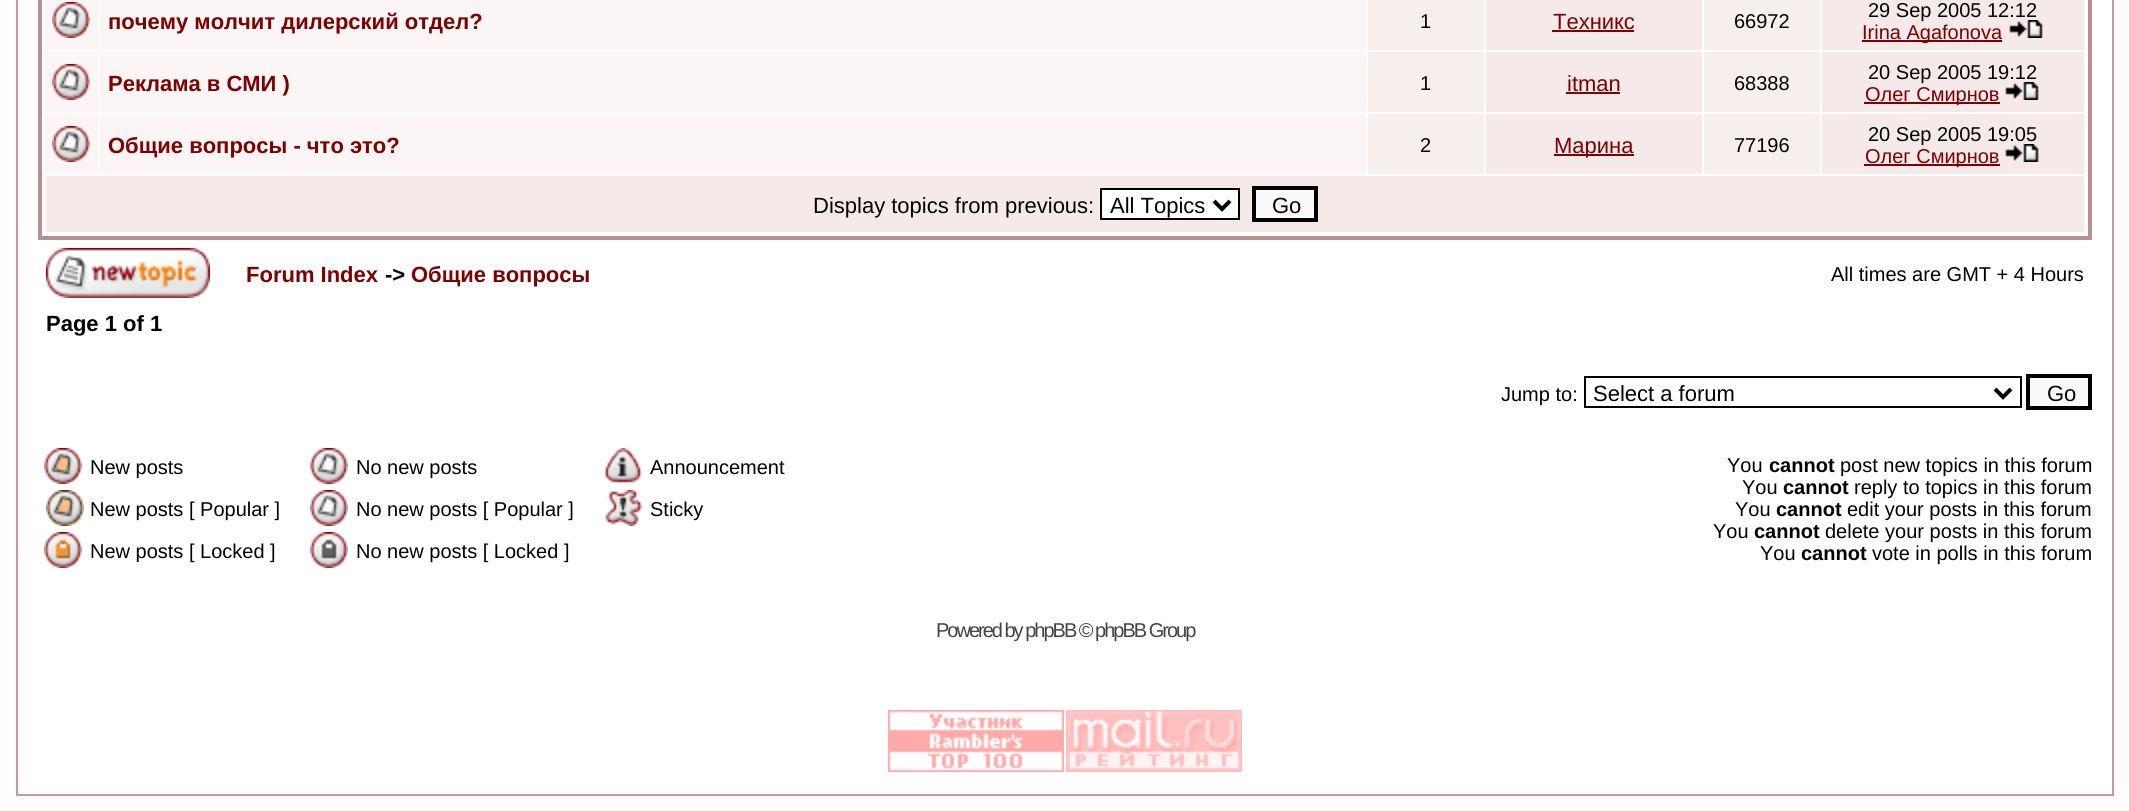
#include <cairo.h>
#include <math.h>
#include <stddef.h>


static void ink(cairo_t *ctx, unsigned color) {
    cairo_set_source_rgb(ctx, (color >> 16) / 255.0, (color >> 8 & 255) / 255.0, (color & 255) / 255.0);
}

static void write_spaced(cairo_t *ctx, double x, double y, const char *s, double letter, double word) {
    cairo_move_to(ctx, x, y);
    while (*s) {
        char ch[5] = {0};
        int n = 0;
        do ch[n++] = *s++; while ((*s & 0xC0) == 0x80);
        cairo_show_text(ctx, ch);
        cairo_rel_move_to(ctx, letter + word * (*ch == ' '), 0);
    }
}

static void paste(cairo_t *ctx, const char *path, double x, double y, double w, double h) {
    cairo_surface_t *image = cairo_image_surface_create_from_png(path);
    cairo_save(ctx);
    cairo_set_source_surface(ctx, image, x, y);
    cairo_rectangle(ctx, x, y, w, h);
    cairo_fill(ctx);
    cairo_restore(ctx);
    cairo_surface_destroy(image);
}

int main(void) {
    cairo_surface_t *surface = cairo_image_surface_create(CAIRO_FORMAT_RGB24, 2129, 811);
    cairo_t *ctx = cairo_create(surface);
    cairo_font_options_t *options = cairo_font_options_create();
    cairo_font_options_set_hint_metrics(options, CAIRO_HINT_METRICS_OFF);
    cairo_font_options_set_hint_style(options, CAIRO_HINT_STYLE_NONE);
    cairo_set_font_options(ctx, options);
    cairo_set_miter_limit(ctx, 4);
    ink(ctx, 0xFFFCFC);
    cairo_paint(ctx);
    ink(ctx, 0xFFFFFF);
    cairo_rectangle(ctx, 17, -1, 2096, 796);
    cairo_fill_preserve(ctx);
    ink(ctx, 0xCC9999);
    cairo_stroke(ctx);
    cairo_rectangle(ctx, 40, -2, 2050, 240);
    ink(ctx, 0xBC8F8F);
    cairo_set_line_width(ctx, 4);
    cairo_stroke(ctx);
    ink(ctx, 0xFBF5F5);
    cairo_rectangle(ctx, 44, 0, 54, 50);
    cairo_fill(ctx);
    paste(ctx, "media/1.png", 52, 2, 38, 36);
    cairo_rectangle(ctx, 100, 0, 1266, 50);
    cairo_fill(ctx);
    cairo_select_font_face(ctx, "Liberation Sans", CAIRO_FONT_SLANT_NORMAL, CAIRO_FONT_WEIGHT_BOLD);
    cairo_set_font_size(ctx, 22);
    ink(ctx, 0x800000);
    cairo_move_to(ctx, 108, 29);
    cairo_show_text(ctx, "почему молчит дилерский отдел?");
    ink(ctx, 0xF7EEEE);
    cairo_rectangle(ctx, 1368, 0, 116, 50);
    cairo_fill(ctx);
    cairo_select_font_face(ctx, "Liberation Sans", CAIRO_FONT_SLANT_NORMAL, CAIRO_FONT_WEIGHT_NORMAL);
    cairo_set_font_size(ctx, 20);
    ink(ctx, 0x000000);
    cairo_move_to(ctx, 1420, 28);
    cairo_show_text(ctx, "1");
    ink(ctx, 0xF5E9E9);
    cairo_rectangle(ctx, 1486, 0, 216, 50);
    cairo_fill(ctx);
    cairo_set_font_size(ctx, 22);
    ink(ctx, 0x800000);
    cairo_move_to(ctx, 1553, 29);
    cairo_show_text(ctx, "Техникс");
    cairo_rectangle(ctx, 1552, 30, 82, 2);
    cairo_fill(ctx);
    ink(ctx, 0xF7EEEE);
    cairo_rectangle(ctx, 1704, 0, 116, 50);
    cairo_fill(ctx);
    cairo_set_font_size(ctx, 20);
    ink(ctx, 0x000000);
    cairo_move_to(ctx, 1734, 28);
    cairo_show_text(ctx, "66972");
    ink(ctx, 0xF5E9E9);
    cairo_rectangle(ctx, 1822, 0, 262, 50);
    cairo_fill(ctx);
    ink(ctx, 0x000000);
    cairo_move_to(ctx, 1868, 17);
    cairo_show_text(ctx, "29 Sep 2005 12:12");
    ink(ctx, 0x800000);
    cairo_rectangle(ctx, 1862, 40, 140, 2);
    cairo_fill(ctx);
    cairo_move_to(ctx, 1862, 39);
    cairo_show_text(ctx, "Irina Agafonova");
    paste(ctx, "media/2.png", 2009, 20, 34, 18);
    ink(ctx, 0xFBF5F5);
    cairo_rectangle(ctx, 44, 52, 54, 60);
    cairo_fill(ctx);
    paste(ctx, "media/1.png", 52, 64, 38, 36);
    cairo_rectangle(ctx, 100, 52, 1266, 60);
    cairo_fill(ctx);
    cairo_select_font_face(ctx, "Liberation Sans", CAIRO_FONT_SLANT_NORMAL, CAIRO_FONT_WEIGHT_BOLD);
    cairo_set_font_size(ctx, 22);
    ink(ctx, 0x800000);
    cairo_move_to(ctx, 108, 91);
    cairo_show_text(ctx, "Реклама в СМИ )");
    ink(ctx, 0xF7EEEE);
    cairo_rectangle(ctx, 1368, 52, 116, 60);
    cairo_fill(ctx);
    cairo_select_font_face(ctx, "Liberation Sans", CAIRO_FONT_SLANT_NORMAL, CAIRO_FONT_WEIGHT_NORMAL);
    cairo_set_font_size(ctx, 20);
    ink(ctx, 0x000000);
    cairo_move_to(ctx, 1420, 90);
    cairo_show_text(ctx, "1");
    ink(ctx, 0xF5E9E9);
    cairo_rectangle(ctx, 1486, 52, 216, 60);
    cairo_fill(ctx);
    cairo_set_font_size(ctx, 22);
    ink(ctx, 0x800000);
    cairo_move_to(ctx, 1567, 91);
    cairo_show_text(ctx, "itman");
    cairo_rectangle(ctx, 1566, 92, 54, 2);
    cairo_fill(ctx);
    ink(ctx, 0xF7EEEE);
    cairo_rectangle(ctx, 1704, 52, 116, 60);
    cairo_fill(ctx);
    cairo_set_font_size(ctx, 20);
    ink(ctx, 0x000000);
    cairo_move_to(ctx, 1734, 90);
    cairo_show_text(ctx, "68388");
    ink(ctx, 0xF5E9E9);
    cairo_rectangle(ctx, 1822, 52, 262, 60);
    cairo_fill(ctx);
    ink(ctx, 0x000000);
    cairo_move_to(ctx, 1868, 79);
    cairo_show_text(ctx, "20 Sep 2005 19:12");
    ink(ctx, 0x800000);
    cairo_rectangle(ctx, 1864, 102, 136, 2);
    cairo_fill(ctx);
    cairo_move_to(ctx, 1865, 101);
    cairo_show_text(ctx, "Олег Смирнов");
    paste(ctx, "media/2.png", 2005, 82, 34, 18);
    ink(ctx, 0xFBF5F5);
    cairo_rectangle(ctx, 44, 114, 54, 60);
    cairo_fill(ctx);
    paste(ctx, "media/1.png", 52, 126, 38, 36);
    cairo_rectangle(ctx, 100, 114, 1266, 60);
    cairo_fill(ctx);
    cairo_select_font_face(ctx, "Liberation Sans", CAIRO_FONT_SLANT_NORMAL, CAIRO_FONT_WEIGHT_BOLD);
    cairo_set_font_size(ctx, 22);
    ink(ctx, 0x800000);
    cairo_move_to(ctx, 108, 153);
    cairo_show_text(ctx, "Общие вопросы - что это?");
    ink(ctx, 0xF7EEEE);
    cairo_rectangle(ctx, 1368, 114, 116, 60);
    cairo_fill(ctx);
    cairo_select_font_face(ctx, "Liberation Sans", CAIRO_FONT_SLANT_NORMAL, CAIRO_FONT_WEIGHT_NORMAL);
    cairo_set_font_size(ctx, 20);
    ink(ctx, 0x000000);
    cairo_move_to(ctx, 1420, 152);
    cairo_show_text(ctx, "2");
    ink(ctx, 0xF5E9E9);
    cairo_rectangle(ctx, 1486, 114, 216, 60);
    cairo_fill(ctx);
    ink(ctx, 0x800000);
    cairo_rectangle(ctx, 1554, 154, 80, 2);
    cairo_fill(ctx);
    cairo_set_font_size(ctx, 22);
    cairo_move_to(ctx, 1554, 153);
    cairo_show_text(ctx, "Марина");
    ink(ctx, 0xF7EEEE);
    cairo_rectangle(ctx, 1704, 114, 116, 60);
    cairo_fill(ctx);
    cairo_set_font_size(ctx, 20);
    ink(ctx, 0x000000);
    cairo_move_to(ctx, 1734, 152);
    cairo_show_text(ctx, "77196");
    ink(ctx, 0xF5E9E9);
    cairo_rectangle(ctx, 1822, 114, 262, 60);
    cairo_fill(ctx);
    ink(ctx, 0x000000);
    cairo_move_to(ctx, 1868, 141);
    cairo_show_text(ctx, "20 Sep 2005 19:05");
    ink(ctx, 0x800000);
    cairo_rectangle(ctx, 1864, 164, 136, 2);
    cairo_fill(ctx);
    cairo_move_to(ctx, 1865, 163);
    cairo_show_text(ctx, "Олег Смирнов");
    paste(ctx, "media/2.png", 2005, 144, 34, 18);
    ink(ctx, 0xF5E9E9);
    cairo_rectangle(ctx, 46, 176, 2038, 56);
    cairo_fill(ctx);
    cairo_set_font_size(ctx, 22);
    ink(ctx, 0x000000);
    cairo_move_to(ctx, 813, 213);
    cairo_show_text(ctx, "Display topics from previous:");
    ink(ctx, 0xFFFFFF);
    cairo_rectangle(ctx, 1101, 189, 138, 30);
    cairo_fill_preserve(ctx);
    ink(ctx, 0x000000);
    cairo_set_line_width(ctx, 2);
    cairo_stroke(ctx);
    cairo_new_path(ctx);
    cairo_move_to(ctx, 1214, 201);
    cairo_line_to(ctx, 1222, 209);
    cairo_line_to(ctx, 1230, 201);
    cairo_set_line_width(ctx, 4);
    cairo_stroke(ctx);
    cairo_move_to(ctx, 1110, 213);
    cairo_show_text(ctx, "All Topics");
    ink(ctx, 0xFAFAFA);
    cairo_rectangle(ctx, 1254, 188, 62, 32);
    cairo_fill_preserve(ctx);
    ink(ctx, 0x000000);
    cairo_stroke(ctx);
    cairo_move_to(ctx, 1272, 213);
    cairo_show_text(ctx, "Go");
    paste(ctx, "media/3.png", 46, 248, 164, 50);
    cairo_select_font_face(ctx, "Liberation Sans", CAIRO_FONT_SLANT_NORMAL, CAIRO_FONT_WEIGHT_BOLD);
    ink(ctx, 0x800000);
    cairo_move_to(ctx, 246, 282);
    cairo_show_text(ctx, "Forum Index");
    ink(ctx, 0x000000);
    cairo_move_to(ctx, 385, 282);
    cairo_show_text(ctx, "->");
    ink(ctx, 0x800000);
    cairo_move_to(ctx, 411, 282);
    cairo_show_text(ctx, "Общие вопросы");
    cairo_select_font_face(ctx, "Liberation Sans", CAIRO_FONT_SLANT_NORMAL, CAIRO_FONT_WEIGHT_NORMAL);
    cairo_set_font_size(ctx, 20);
    ink(ctx, 0x000000);
    cairo_move_to(ctx, 1831, 281);
    cairo_show_text(ctx, "All times are GMT + 4 Hours");
    cairo_select_font_face(ctx, "Liberation Sans", CAIRO_FONT_SLANT_NORMAL, CAIRO_FONT_WEIGHT_BOLD);
    cairo_set_font_size(ctx, 22);
    cairo_move_to(ctx, 46, 331);
    cairo_show_text(ctx, "Page 1 of 1");
    cairo_select_font_face(ctx, "Liberation Sans", CAIRO_FONT_SLANT_NORMAL, CAIRO_FONT_WEIGHT_NORMAL);
    cairo_set_font_size(ctx, 20);
    cairo_move_to(ctx, 1501, 401);
    cairo_show_text(ctx, "Jump to:");
    cairo_rectangle(ctx, 1585, 377, 436, 30);
    cairo_set_line_width(ctx, 2);
    cairo_stroke(ctx);
    cairo_new_path(ctx);
    cairo_move_to(ctx, 1995, 389);
    cairo_line_to(ctx, 2003, 397);
    cairo_line_to(ctx, 2011, 389);
    cairo_set_line_width(ctx, 4);
    cairo_stroke(ctx);
    cairo_set_font_size(ctx, 22);
    cairo_move_to(ctx, 1593, 401);
    cairo_show_text(ctx, "Select a forum");
    ink(ctx, 0xFAFAFA);
    cairo_rectangle(ctx, 2028, 376, 62, 32);
    cairo_fill_preserve(ctx);
    ink(ctx, 0x000000);
    cairo_stroke(ctx);
    cairo_move_to(ctx, 2047, 401);
    cairo_show_text(ctx, "Go");
    paste(ctx, "media/4.png", 44, 448, 38, 36);
    cairo_set_font_size(ctx, 20);
    cairo_move_to(ctx, 90, 474);
    cairo_show_text(ctx, "New posts");
    paste(ctx, "media/5.png", 310, 448, 38, 36);
    cairo_move_to(ctx, 356, 474);
    cairo_show_text(ctx, "No new posts");
    paste(ctx, "media/6.png", 604, 448, 38, 35);
    cairo_move_to(ctx, 650, 474);
    cairo_show_text(ctx, "Announcement");
    paste(ctx, "media/7.png", 46, 490, 38, 36);
    cairo_move_to(ctx, 90, 516);
    cairo_show_text(ctx, "New posts [ Popular ]");
    paste(ctx, "media/8.png", 310, 490, 38, 36);
    cairo_move_to(ctx, 356, 516);
    cairo_show_text(ctx, "No new posts [ Popular ]");
    paste(ctx, "media/9.png", 605, 490, 37, 36);
    cairo_move_to(ctx, 650, 516);
    cairo_show_text(ctx, "Sticky");
    paste(ctx, "media/10.png", 44, 532, 38, 36);
    cairo_move_to(ctx, 90, 558);
    cairo_show_text(ctx, "New posts [ Locked ]");
    paste(ctx, "media/11.png", 310, 532, 38, 36);
    cairo_move_to(ctx, 356, 558);
    cairo_show_text(ctx, "No new posts [ Locked ]");
    cairo_move_to(ctx, 1727, 472);
    cairo_show_text(ctx, "You");
    cairo_select_font_face(ctx, "Liberation Sans", CAIRO_FONT_SLANT_NORMAL, CAIRO_FONT_WEIGHT_BOLD);
    cairo_move_to(ctx, 1769, 472);
    cairo_show_text(ctx, "cannot");
    cairo_select_font_face(ctx, "Liberation Sans", CAIRO_FONT_SLANT_NORMAL, CAIRO_FONT_WEIGHT_NORMAL);
    cairo_move_to(ctx, 1840, 472);
    cairo_show_text(ctx, "post new topics in this forum");
    cairo_move_to(ctx, 1742, 494);
    cairo_show_text(ctx, "You");
    cairo_select_font_face(ctx, "Liberation Sans", CAIRO_FONT_SLANT_NORMAL, CAIRO_FONT_WEIGHT_BOLD);
    cairo_move_to(ctx, 1783, 494);
    cairo_show_text(ctx, "cannot");
    cairo_select_font_face(ctx, "Liberation Sans", CAIRO_FONT_SLANT_NORMAL, CAIRO_FONT_WEIGHT_NORMAL);
    cairo_move_to(ctx, 1854, 494);
    cairo_show_text(ctx, "reply to topics in this forum");
    cairo_move_to(ctx, 1735, 516);
    cairo_show_text(ctx, "You");
    cairo_select_font_face(ctx, "Liberation Sans", CAIRO_FONT_SLANT_NORMAL, CAIRO_FONT_WEIGHT_BOLD);
    cairo_move_to(ctx, 1776, 516);
    cairo_show_text(ctx, "cannot");
    cairo_select_font_face(ctx, "Liberation Sans", CAIRO_FONT_SLANT_NORMAL, CAIRO_FONT_WEIGHT_NORMAL);
    cairo_move_to(ctx, 1847, 516);
    cairo_show_text(ctx, "edit your posts in this forum");
    cairo_move_to(ctx, 1713, 538);
    cairo_show_text(ctx, "You");
    cairo_select_font_face(ctx, "Liberation Sans", CAIRO_FONT_SLANT_NORMAL, CAIRO_FONT_WEIGHT_BOLD);
    cairo_move_to(ctx, 1754, 538);
    cairo_show_text(ctx, "cannot");
    cairo_select_font_face(ctx, "Liberation Sans", CAIRO_FONT_SLANT_NORMAL, CAIRO_FONT_WEIGHT_NORMAL);
    cairo_move_to(ctx, 1825, 538);
    cairo_show_text(ctx, "delete your posts in this forum");
    cairo_move_to(ctx, 1760, 560);
    cairo_show_text(ctx, "You");
    cairo_select_font_face(ctx, "Liberation Sans", CAIRO_FONT_SLANT_NORMAL, CAIRO_FONT_WEIGHT_BOLD);
    cairo_move_to(ctx, 1801, 560);
    cairo_show_text(ctx, "cannot");
    cairo_select_font_face(ctx, "Liberation Sans", CAIRO_FONT_SLANT_NORMAL, CAIRO_FONT_WEIGHT_NORMAL);
    cairo_move_to(ctx, 1872, 560);
    cairo_show_text(ctx, "vote in polls in this forum");
    ink(ctx, 0x444444);
    write_spaced(ctx, 936, 637, "Powered by phpBB © phpBB Group", -2, 0);
    paste(ctx, "media/12.png", 888, 710, 176, 62);
    paste(ctx, "media/13.png", 1066, 710, 176, 62);
    cairo_surface_write_to_png(surface, "image.png");
    cairo_font_options_destroy(options);
    cairo_destroy(ctx);
    cairo_surface_destroy(surface);
    return 0;
}
